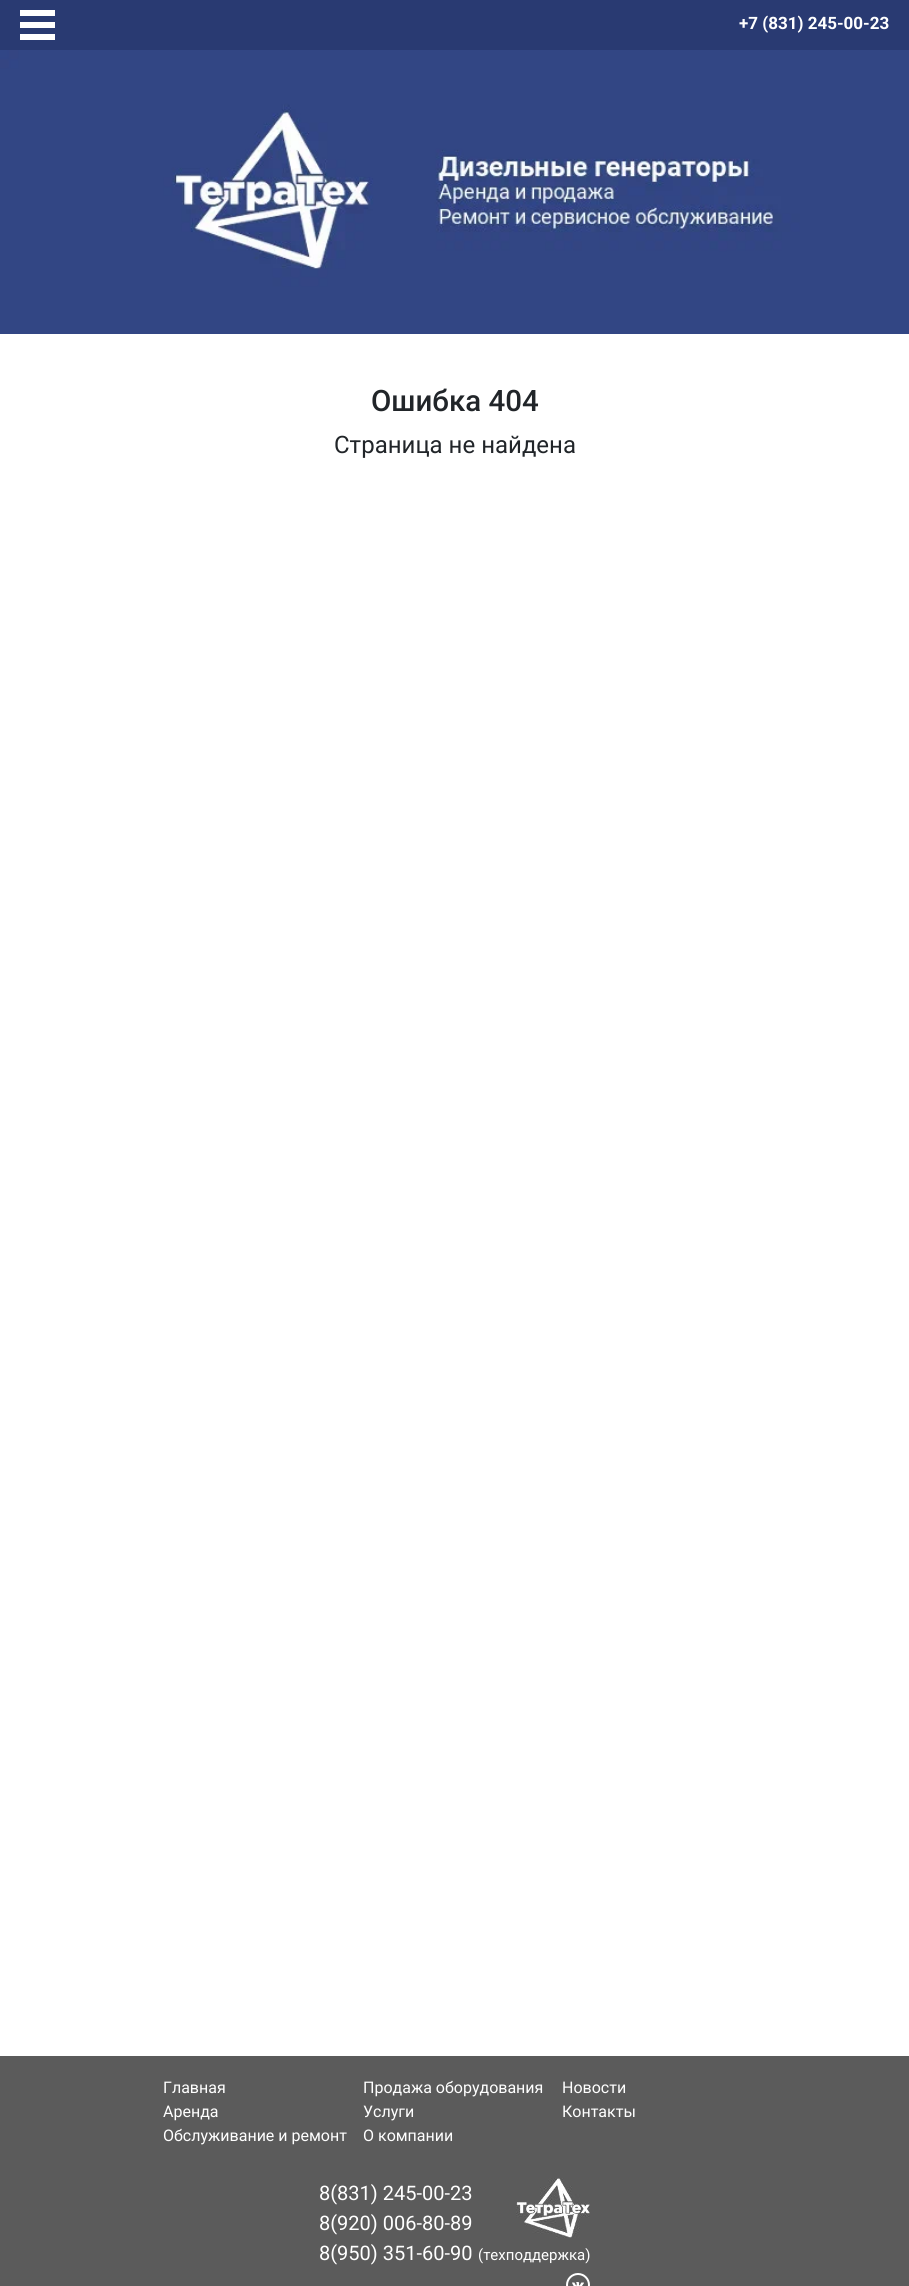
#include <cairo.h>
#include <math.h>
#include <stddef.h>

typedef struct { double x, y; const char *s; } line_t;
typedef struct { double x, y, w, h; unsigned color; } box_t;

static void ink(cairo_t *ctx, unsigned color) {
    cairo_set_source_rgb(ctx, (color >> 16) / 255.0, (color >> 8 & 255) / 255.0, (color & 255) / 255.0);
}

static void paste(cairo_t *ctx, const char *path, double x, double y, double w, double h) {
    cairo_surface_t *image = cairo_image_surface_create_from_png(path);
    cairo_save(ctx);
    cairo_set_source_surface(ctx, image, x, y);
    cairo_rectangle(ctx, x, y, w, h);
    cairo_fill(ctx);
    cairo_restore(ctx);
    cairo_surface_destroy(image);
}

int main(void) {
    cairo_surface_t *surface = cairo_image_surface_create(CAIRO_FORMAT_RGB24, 909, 2286);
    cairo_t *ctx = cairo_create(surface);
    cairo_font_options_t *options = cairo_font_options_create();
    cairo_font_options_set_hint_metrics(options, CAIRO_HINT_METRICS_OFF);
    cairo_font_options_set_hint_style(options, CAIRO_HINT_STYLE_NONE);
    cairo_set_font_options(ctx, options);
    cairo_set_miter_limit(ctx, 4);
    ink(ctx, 0xFFFFFF);
    cairo_paint(ctx);
    {
        static const box_t items[] = {
            {0, 0, 909, 50, 0x293A72},
            {20, 10, 35, 6, 0xFFFFFF},
            {20, 22, 35, 6, 0xFFFFFF},
            {20, 34, 35, 6, 0xFFFFFF},
        };
        for (size_t i = 0; i < sizeof items / sizeof *items; i++) {
            ink(ctx, items[i].color);
            cairo_rectangle(ctx, items[i].x, items[i].y, items[i].w, items[i].h);
            cairo_fill(ctx);
        }
    }
    cairo_select_font_face(ctx, "Roboto", CAIRO_FONT_SLANT_NORMAL, CAIRO_FONT_WEIGHT_BOLD);
    cairo_set_font_size(ctx, 17);
    cairo_move_to(ctx, 739, 29);
    cairo_show_text(ctx, "+7 (831) 245-00-23");
    paste(ctx, "media/1.png", 0, 50, 909, 284);
    cairo_select_font_face(ctx, "Roboto Medium", CAIRO_FONT_SLANT_NORMAL, CAIRO_FONT_WEIGHT_NORMAL);
    cairo_set_font_size(ctx, 29.5);
    ink(ctx, 0x212529);
    cairo_move_to(ctx, 371, 411);
    cairo_show_text(ctx, "Ошибка 404");
    cairo_select_font_face(ctx, "Roboto", CAIRO_FONT_SLANT_NORMAL, CAIRO_FONT_WEIGHT_NORMAL);
    cairo_set_font_size(ctx, 24);
    cairo_move_to(ctx, 334, 453);
    cairo_show_text(ctx, "Страница не найдена");
    ink(ctx, 0x5B5B5B);
    cairo_rectangle(ctx, 0, 2056, 909, 230);
    cairo_fill(ctx);
    cairo_set_font_size(ctx, 16);
    ink(ctx, 0xFFFFFF);
    {
        static const line_t items[] = {
            {163, 2093, "Главная"},
            {363, 2093, "Продажа оборудования"},
            {562, 2093, "Новости"},
            {163, 2117, "Аренда"},
            {363, 2117, "Услуги"},
            {562, 2117, "Контакты"},
            {163, 2141, "Обслуживание и ремонт"},
            {363, 2141, "О компании"},
        };
        for (size_t i = 0; i < sizeof items / sizeof *items; i++) {
            cairo_move_to(ctx, items[i].x, items[i].y);
            cairo_show_text(ctx, items[i].s);
        }
    }
    cairo_set_font_size(ctx, 20);
    cairo_move_to(ctx, 319, 2200);
    cairo_show_text(ctx, "8(831) 245-00-23");
    cairo_move_to(ctx, 319, 2230);
    cairo_show_text(ctx, "8(920) 006-80-89");
    paste(ctx, "media/2.png", 516, 2178, 74, 60);
    cairo_move_to(ctx, 319, 2260);
    cairo_show_text(ctx, "8(950) 351-60-90");
    cairo_set_font_size(ctx, 15);
    cairo_move_to(ctx, 478, 2260);
    cairo_show_text(ctx, "(техподдержка)");
    paste(ctx, "media/3.png", 566, 2273, 24, 13);
    cairo_surface_write_to_png(surface, "image.png");
    cairo_font_options_destroy(options);
    cairo_destroy(ctx);
    cairo_surface_destroy(surface);
    return 0;
}
